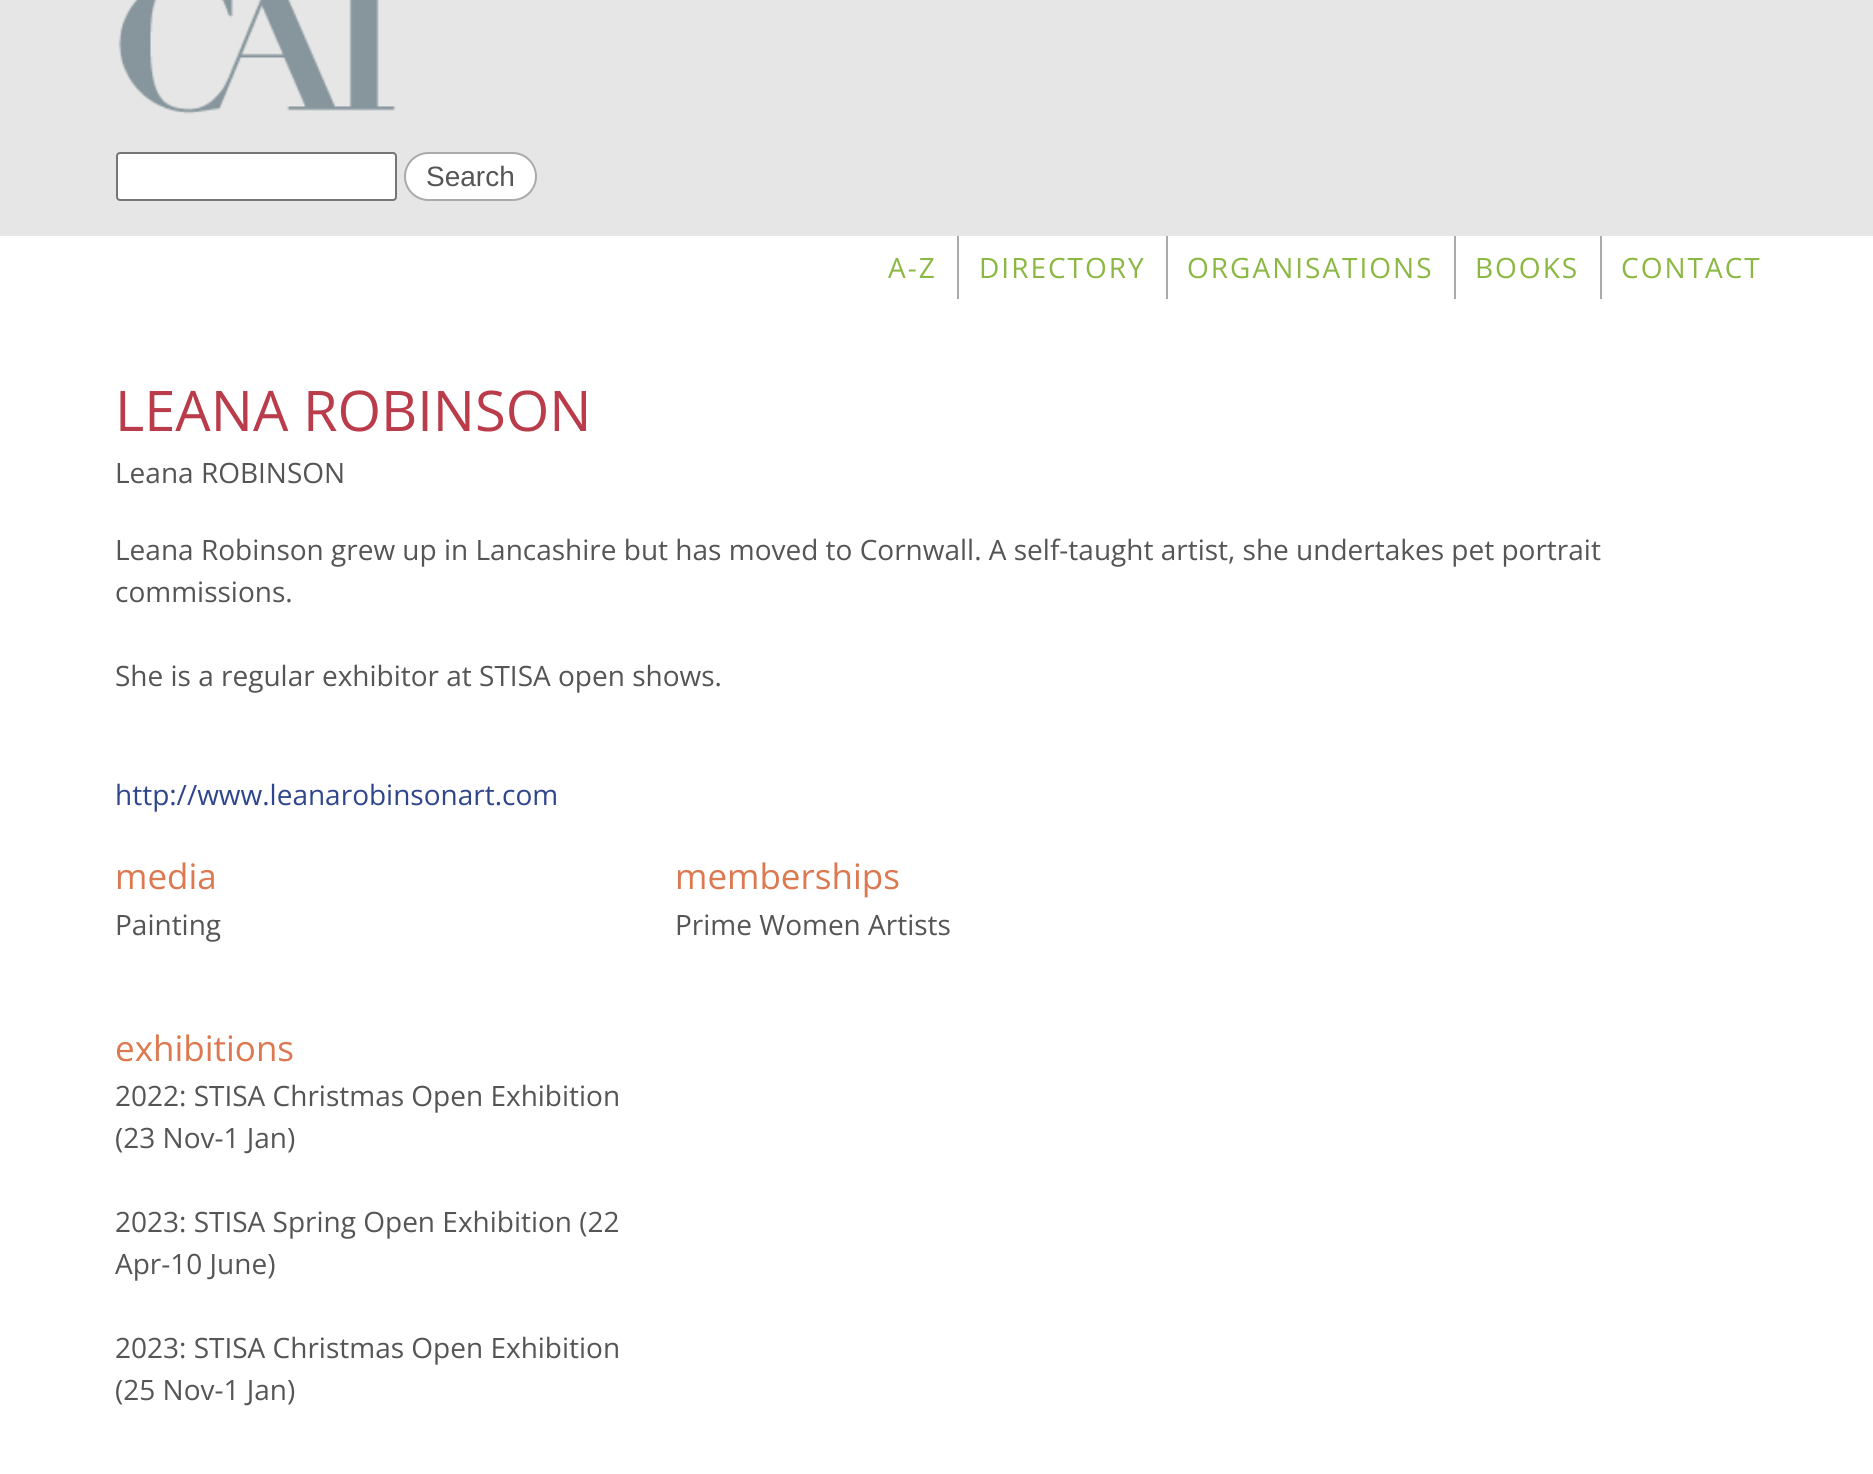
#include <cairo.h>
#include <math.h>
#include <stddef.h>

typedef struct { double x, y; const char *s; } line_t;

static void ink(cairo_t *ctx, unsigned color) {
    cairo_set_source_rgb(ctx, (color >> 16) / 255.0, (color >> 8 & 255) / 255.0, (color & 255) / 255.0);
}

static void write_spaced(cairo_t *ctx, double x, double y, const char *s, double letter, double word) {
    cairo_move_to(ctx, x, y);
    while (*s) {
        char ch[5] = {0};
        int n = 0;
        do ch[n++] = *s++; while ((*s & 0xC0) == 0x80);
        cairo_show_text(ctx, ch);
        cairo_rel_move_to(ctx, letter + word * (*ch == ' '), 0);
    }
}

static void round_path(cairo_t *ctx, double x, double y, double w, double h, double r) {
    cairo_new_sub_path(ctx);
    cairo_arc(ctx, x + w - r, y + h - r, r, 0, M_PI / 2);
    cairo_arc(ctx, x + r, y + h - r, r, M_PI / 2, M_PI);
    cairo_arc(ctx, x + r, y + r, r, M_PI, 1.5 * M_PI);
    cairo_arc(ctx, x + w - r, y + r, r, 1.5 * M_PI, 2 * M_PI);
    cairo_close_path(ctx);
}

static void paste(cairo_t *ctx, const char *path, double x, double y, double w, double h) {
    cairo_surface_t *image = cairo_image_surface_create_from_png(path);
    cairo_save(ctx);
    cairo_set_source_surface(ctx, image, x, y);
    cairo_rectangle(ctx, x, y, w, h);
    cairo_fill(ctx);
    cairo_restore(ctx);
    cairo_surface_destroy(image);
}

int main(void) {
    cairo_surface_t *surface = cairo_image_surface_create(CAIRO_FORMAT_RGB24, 1873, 1474);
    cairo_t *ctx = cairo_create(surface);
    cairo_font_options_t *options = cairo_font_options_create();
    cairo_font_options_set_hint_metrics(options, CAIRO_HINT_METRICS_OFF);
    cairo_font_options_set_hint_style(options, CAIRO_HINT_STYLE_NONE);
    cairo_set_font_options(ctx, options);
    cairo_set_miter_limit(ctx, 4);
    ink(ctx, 0xFFFFFF);
    cairo_paint(ctx);
    ink(ctx, 0xE6E6E6);
    cairo_rectangle(ctx, 0, 0, 1873, 236);
    cairo_fill(ctx);
    paste(ctx, "media/1.png", 118, 0, 278, 114);
    ink(ctx, 0xFFFFFF);
    round_path(ctx, 117, 153, 279, 47, 3);
    cairo_fill_preserve(ctx);
    ink(ctx, 0x767676);
    cairo_stroke(ctx);
    ink(ctx, 0xFFFFFF);
    round_path(ctx, 405, 153, 131, 47, 23.5);
    cairo_fill_preserve(ctx);
    ink(ctx, 0xAAAAAA);
    cairo_stroke(ctx);
    cairo_select_font_face(ctx, "Liberation Sans", CAIRO_FONT_SLANT_NORMAL, CAIRO_FONT_WEIGHT_NORMAL);
    cairo_set_font_size(ctx, 28);
    ink(ctx, 0x555555);
    cairo_move_to(ctx, 426, 186);
    cairo_show_text(ctx, "Search");
    ink(ctx, 0xAAAAAA);
    cairo_rectangle(ctx, 957, 236, 2, 63);
    cairo_fill(ctx);
    cairo_select_font_face(ctx, "Open Sans", CAIRO_FONT_SLANT_NORMAL, CAIRO_FONT_WEIGHT_NORMAL);
    ink(ctx, 0x8BB743);
    write_spaced(ctx, 888, 278, "A-Z", 2, 0);
    ink(ctx, 0xAAAAAA);
    cairo_rectangle(ctx, 1166, 236, 2, 63);
    cairo_fill(ctx);
    ink(ctx, 0x8BB743);
    write_spaced(ctx, 979, 278, "DIRECTORY", 2, 0);
    ink(ctx, 0xAAAAAA);
    cairo_rectangle(ctx, 1454, 236, 2, 63);
    cairo_fill(ctx);
    ink(ctx, 0x8BB743);
    write_spaced(ctx, 1187, 278, "ORGANISATIONS", 2, 0);
    ink(ctx, 0xAAAAAA);
    cairo_rectangle(ctx, 1600, 236, 2, 63);
    cairo_fill(ctx);
    ink(ctx, 0x8BB743);
    write_spaced(ctx, 1475, 278, "BOOKS", 2, 0);
    write_spaced(ctx, 1621, 278, "CONTACT", 2, 0);
    cairo_set_font_size(ctx, 56);
    ink(ctx, 0xBA3C4B);
    cairo_move_to(ctx, 115, 431);
    cairo_show_text(ctx, "LEANA ROBINSON");
    cairo_set_font_size(ctx, 28);
    ink(ctx, 0x555555);
    {
        static const line_t items[] = {
            {115, 483, "Leana ROBINSON"},
            {115, 560, "Leana Robinson grew up in Lancashire but has moved to Cornwall. A self-taught artist, she undertakes pet portrait"},
            {115, 602, "commissions."},
            {115, 686, "She is a regular exhibitor at STISA open shows."},
        };
        for (size_t i = 0; i < sizeof items / sizeof *items; i++) {
            cairo_move_to(ctx, items[i].x, items[i].y);
            cairo_show_text(ctx, items[i].s);
        }
    }
    ink(ctx, 0x2F468C);
    cairo_move_to(ctx, 115, 805);
    cairo_show_text(ctx, "http://www.leanarobinsonart.com");
    cairo_set_font_size(ctx, 35);
    ink(ctx, 0xDC7950);
    cairo_move_to(ctx, 115, 889);
    cairo_show_text(ctx, "media");
    cairo_set_font_size(ctx, 28);
    ink(ctx, 0x555555);
    cairo_move_to(ctx, 115, 935);
    cairo_show_text(ctx, "Painting");
    cairo_set_font_size(ctx, 35);
    ink(ctx, 0xDC7950);
    cairo_move_to(ctx, 115, 1061);
    cairo_show_text(ctx, "exhibitions");
    cairo_set_font_size(ctx, 28);
    ink(ctx, 0x555555);
    {
        static const line_t items[] = {
            {115, 1106, "2022: STISA Christmas Open Exhibition"},
            {115, 1148, "(23 Nov-1 Jan)"},
            {115, 1232, "2023: STISA Spring Open Exhibition (22"},
            {115, 1274, "Apr-10 June)"},
            {115, 1358, "2023: STISA Christmas Open Exhibition"},
            {115, 1400, "(25 Nov-1 Jan)"},
        };
        for (size_t i = 0; i < sizeof items / sizeof *items; i++) {
            cairo_move_to(ctx, items[i].x, items[i].y);
            cairo_show_text(ctx, items[i].s);
        }
    }
    cairo_set_font_size(ctx, 35);
    ink(ctx, 0xDC7950);
    cairo_move_to(ctx, 675, 889);
    cairo_show_text(ctx, "memberships");
    cairo_set_font_size(ctx, 28);
    ink(ctx, 0x555555);
    cairo_move_to(ctx, 675, 935);
    cairo_show_text(ctx, "Prime Women Artists");
    cairo_surface_write_to_png(surface, "image.png");
    cairo_font_options_destroy(options);
    cairo_destroy(ctx);
    cairo_surface_destroy(surface);
    return 0;
}
